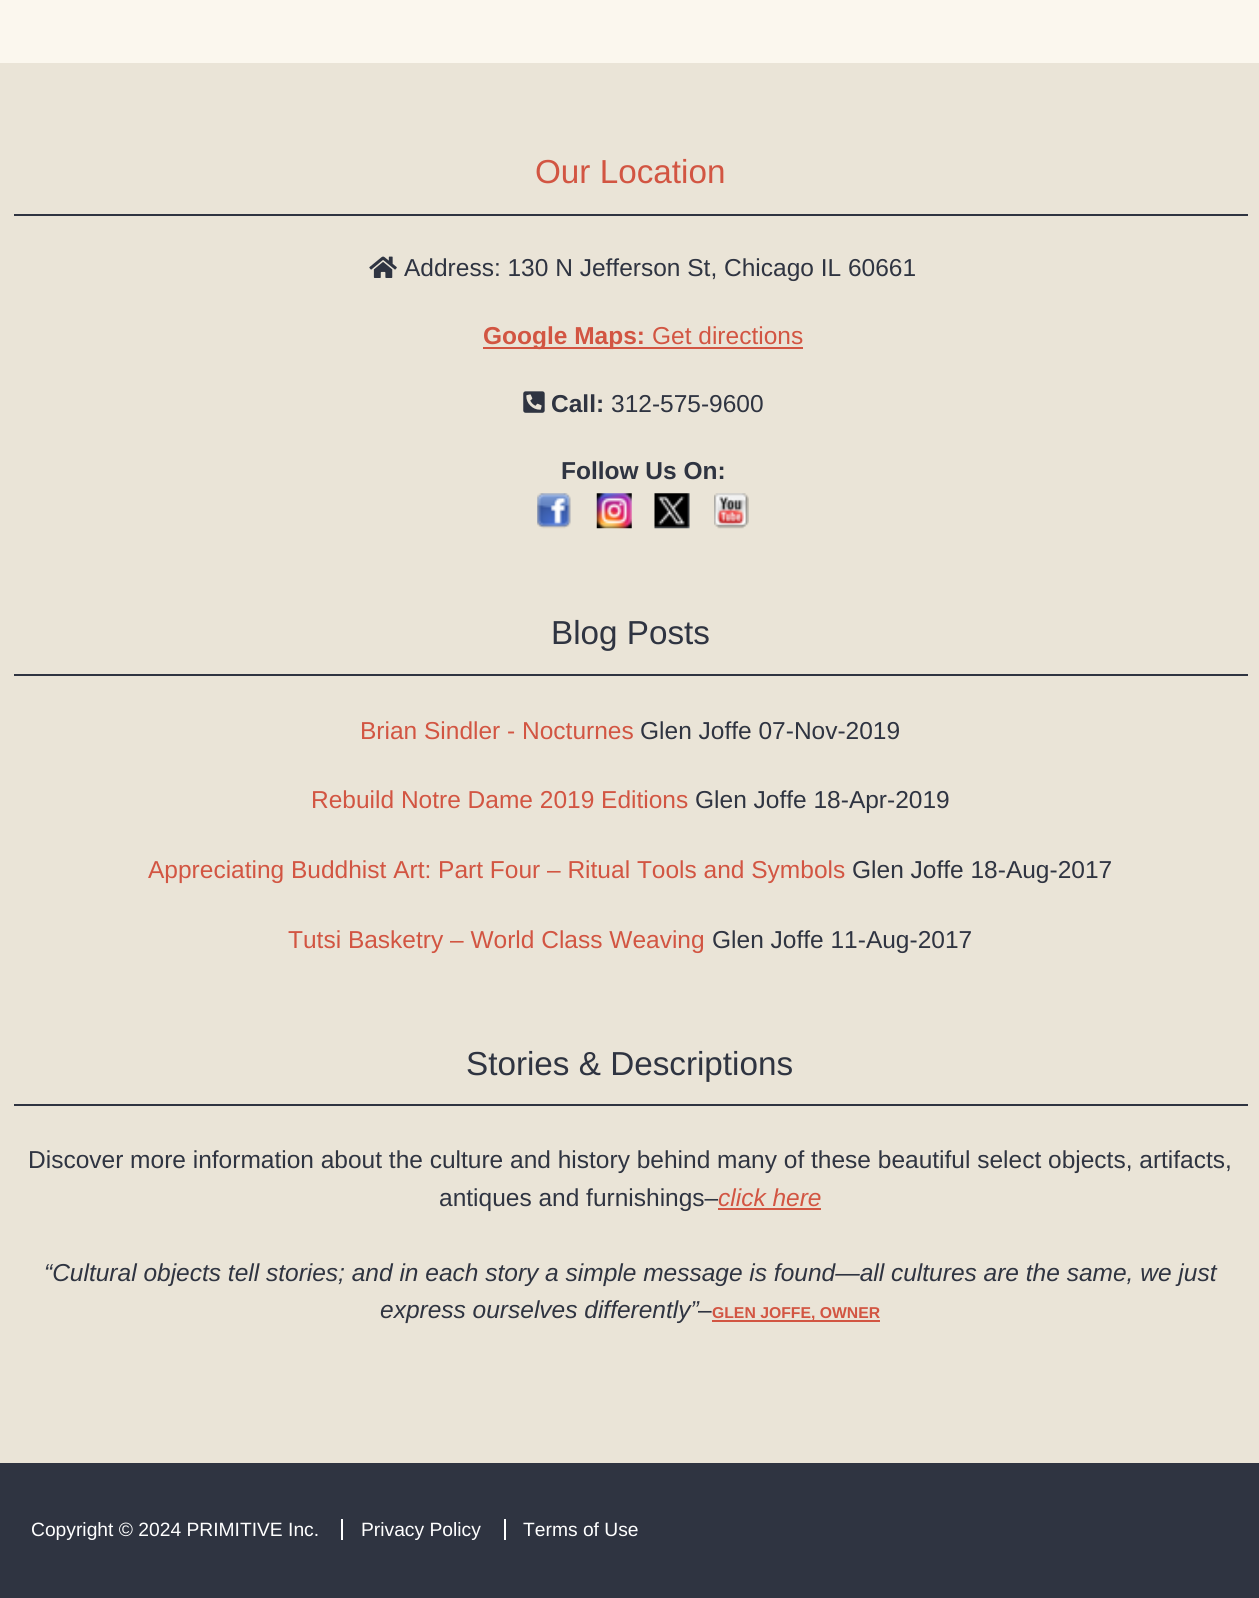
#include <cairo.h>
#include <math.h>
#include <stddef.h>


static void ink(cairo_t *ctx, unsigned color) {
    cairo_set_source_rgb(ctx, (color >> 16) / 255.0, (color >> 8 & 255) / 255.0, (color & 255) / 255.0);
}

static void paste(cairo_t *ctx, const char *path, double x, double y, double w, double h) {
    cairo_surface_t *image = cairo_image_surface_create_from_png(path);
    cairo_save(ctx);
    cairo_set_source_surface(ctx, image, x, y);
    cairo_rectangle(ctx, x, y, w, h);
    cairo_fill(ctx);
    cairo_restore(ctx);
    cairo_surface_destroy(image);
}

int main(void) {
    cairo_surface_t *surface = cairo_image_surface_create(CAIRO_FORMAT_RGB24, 1259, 1598);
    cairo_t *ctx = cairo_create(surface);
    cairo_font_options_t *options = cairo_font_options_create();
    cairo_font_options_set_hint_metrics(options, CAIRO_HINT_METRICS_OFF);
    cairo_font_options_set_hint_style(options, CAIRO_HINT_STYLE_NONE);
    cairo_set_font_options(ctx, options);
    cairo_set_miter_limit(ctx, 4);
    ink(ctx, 0xFBF7EE);
    cairo_paint(ctx);
    ink(ctx, 0xEAE4D7);
    cairo_rectangle(ctx, 0, 63, 1259, 1400);
    cairo_fill(ctx);
    ink(ctx, 0x2F3441);
    cairo_rectangle(ctx, 14, 214, 1234, 2);
    cairo_fill(ctx);
    cairo_select_font_face(ctx, "Liberation Sans", CAIRO_FONT_SLANT_NORMAL, CAIRO_FONT_WEIGHT_NORMAL);
    cairo_set_font_size(ctx, 33.25);
    ink(ctx, 0xD25542);
    cairo_move_to(ctx, 535, 183);
    cairo_show_text(ctx, "Our Location");
    paste(ctx, "media/1.png", 369, 256, 28, 22);
    cairo_set_font_size(ctx, 24.5);
    ink(ctx, 0x2F3441);
    cairo_move_to(ctx, 404, 276);
    cairo_show_text(ctx, "Address: 130 N Jefferson St, Chicago IL 60661");
    ink(ctx, 0xD25542);
    cairo_rectangle(ctx, 483, 347, 320, 2);
    cairo_fill(ctx);
    cairo_select_font_face(ctx, "Liberation Sans", CAIRO_FONT_SLANT_NORMAL, CAIRO_FONT_WEIGHT_BOLD);
    cairo_move_to(ctx, 483, 344);
    cairo_show_text(ctx, "Google Maps:");
    cairo_select_font_face(ctx, "Liberation Sans", CAIRO_FONT_SLANT_NORMAL, CAIRO_FONT_WEIGHT_NORMAL);
    cairo_move_to(ctx, 652, 344);
    cairo_show_text(ctx, "Get directions");
    paste(ctx, "media/2.png", 523, 391, 22, 22);
    cairo_select_font_face(ctx, "Liberation Sans", CAIRO_FONT_SLANT_NORMAL, CAIRO_FONT_WEIGHT_BOLD);
    ink(ctx, 0x2F3441);
    cairo_move_to(ctx, 551, 412);
    cairo_show_text(ctx, "Call:");
    cairo_select_font_face(ctx, "Liberation Sans", CAIRO_FONT_SLANT_NORMAL, CAIRO_FONT_WEIGHT_NORMAL);
    cairo_move_to(ctx, 611, 412);
    cairo_show_text(ctx, "312-575-9600");
    cairo_select_font_face(ctx, "Liberation Sans", CAIRO_FONT_SLANT_NORMAL, CAIRO_FONT_WEIGHT_BOLD);
    cairo_move_to(ctx, 561, 479);
    cairo_show_text(ctx, "Follow Us On:");
    paste(ctx, "media/3.png", 537, 493, 34, 36);
    paste(ctx, "media/4.png", 596, 493, 36, 36);
    paste(ctx, "media/5.png", 654, 493, 36, 36);
    paste(ctx, "media/6.png", 714, 493, 35, 36);
    cairo_rectangle(ctx, 14, 674, 1234, 2);
    cairo_fill(ctx);
    cairo_select_font_face(ctx, "Liberation Sans", CAIRO_FONT_SLANT_NORMAL, CAIRO_FONT_WEIGHT_NORMAL);
    cairo_set_font_size(ctx, 33.25);
    cairo_move_to(ctx, 551, 644);
    cairo_show_text(ctx, "Blog Posts");
    cairo_set_font_size(ctx, 24.5);
    ink(ctx, 0xD25542);
    cairo_move_to(ctx, 360, 739);
    cairo_show_text(ctx, "Brian Sindler - Nocturnes");
    ink(ctx, 0x2F3441);
    cairo_move_to(ctx, 640, 739);
    cairo_show_text(ctx, "Glen Joffe 07-Nov-2019");
    ink(ctx, 0xD25542);
    cairo_move_to(ctx, 311, 808);
    cairo_show_text(ctx, "Rebuild Notre Dame 2019 Editions");
    ink(ctx, 0x2F3441);
    cairo_move_to(ctx, 695, 808);
    cairo_show_text(ctx, "Glen Joffe 18-Apr-2019");
    ink(ctx, 0xD25542);
    cairo_move_to(ctx, 148, 878);
    cairo_show_text(ctx, "Appreciating Buddhist Art: Part Four – Ritual Tools and Symbols");
    ink(ctx, 0x2F3441);
    cairo_move_to(ctx, 852, 878);
    cairo_show_text(ctx, "Glen Joffe 18-Aug-2017");
    ink(ctx, 0xD25542);
    cairo_move_to(ctx, 288, 948);
    cairo_show_text(ctx, "Tutsi Basketry – World Class Weaving");
    ink(ctx, 0x2F3441);
    cairo_move_to(ctx, 712, 948);
    cairo_show_text(ctx, "Glen Joffe 11-Aug-2017");
    cairo_rectangle(ctx, 14, 1104, 1234, 2);
    cairo_fill(ctx);
    cairo_set_font_size(ctx, 33.25);
    cairo_move_to(ctx, 466, 1075);
    cairo_show_text(ctx, "Stories & Descriptions");
    cairo_set_font_size(ctx, 24.5);
    cairo_move_to(ctx, 28, 1168);
    cairo_show_text(ctx, "Discover more information about the culture and history behind many of these beautiful select objects, artifacts,");
    cairo_move_to(ctx, 439, 1206);
    cairo_show_text(ctx, "antiques and furnishings–");
    cairo_select_font_face(ctx, "Liberation Sans", CAIRO_FONT_SLANT_ITALIC, CAIRO_FONT_WEIGHT_NORMAL);
    ink(ctx, 0xD25542);
    cairo_move_to(ctx, 718, 1206);
    cairo_show_text(ctx, "click here");
    cairo_rectangle(ctx, 718, 1208, 103, 2);
    cairo_fill(ctx);
    ink(ctx, 0x2F3441);
    cairo_move_to(ctx, 44, 1281);
    cairo_show_text(ctx, "“Cultural objects tell stories; and in each story a simple message is found—all cultures are the same, we just");
    cairo_move_to(ctx, 380, 1318);
    cairo_show_text(ctx, "express ourselves differently”");
    cairo_select_font_face(ctx, "Liberation Sans", CAIRO_FONT_SLANT_NORMAL, CAIRO_FONT_WEIGHT_NORMAL);
    cairo_move_to(ctx, 698, 1318);
    cairo_show_text(ctx, "–");
    ink(ctx, 0xD25542);
    cairo_rectangle(ctx, 712, 1320, 168, 2);
    cairo_fill(ctx);
    cairo_select_font_face(ctx, "Liberation Sans", CAIRO_FONT_SLANT_NORMAL, CAIRO_FONT_WEIGHT_BOLD);
    cairo_set_font_size(ctx, 15.75);
    cairo_move_to(ctx, 712, 1318);
    cairo_show_text(ctx, "GLEN JOFFE, OWNER");
    ink(ctx, 0x2F3441);
    cairo_rectangle(ctx, 0, 1463, 1259, 135);
    cairo_fill(ctx);
    cairo_select_font_face(ctx, "Liberation Sans", CAIRO_FONT_SLANT_NORMAL, CAIRO_FONT_WEIGHT_NORMAL);
    cairo_set_font_size(ctx, 19.25);
    ink(ctx, 0xFFFFFF);
    cairo_move_to(ctx, 31, 1536);
    cairo_show_text(ctx, "Copyright © 2024 PRIMITIVE Inc.");
    cairo_move_to(ctx, 361, 1536);
    cairo_show_text(ctx, "Privacy Policy");
    cairo_rectangle(ctx, 341, 1519, 2, 21);
    cairo_fill(ctx);
    cairo_move_to(ctx, 523, 1536);
    cairo_show_text(ctx, "Terms of Use");
    cairo_rectangle(ctx, 504, 1519, 2, 21);
    cairo_fill(ctx);
    cairo_surface_write_to_png(surface, "image.png");
    cairo_font_options_destroy(options);
    cairo_destroy(ctx);
    cairo_surface_destroy(surface);
    return 0;
}
